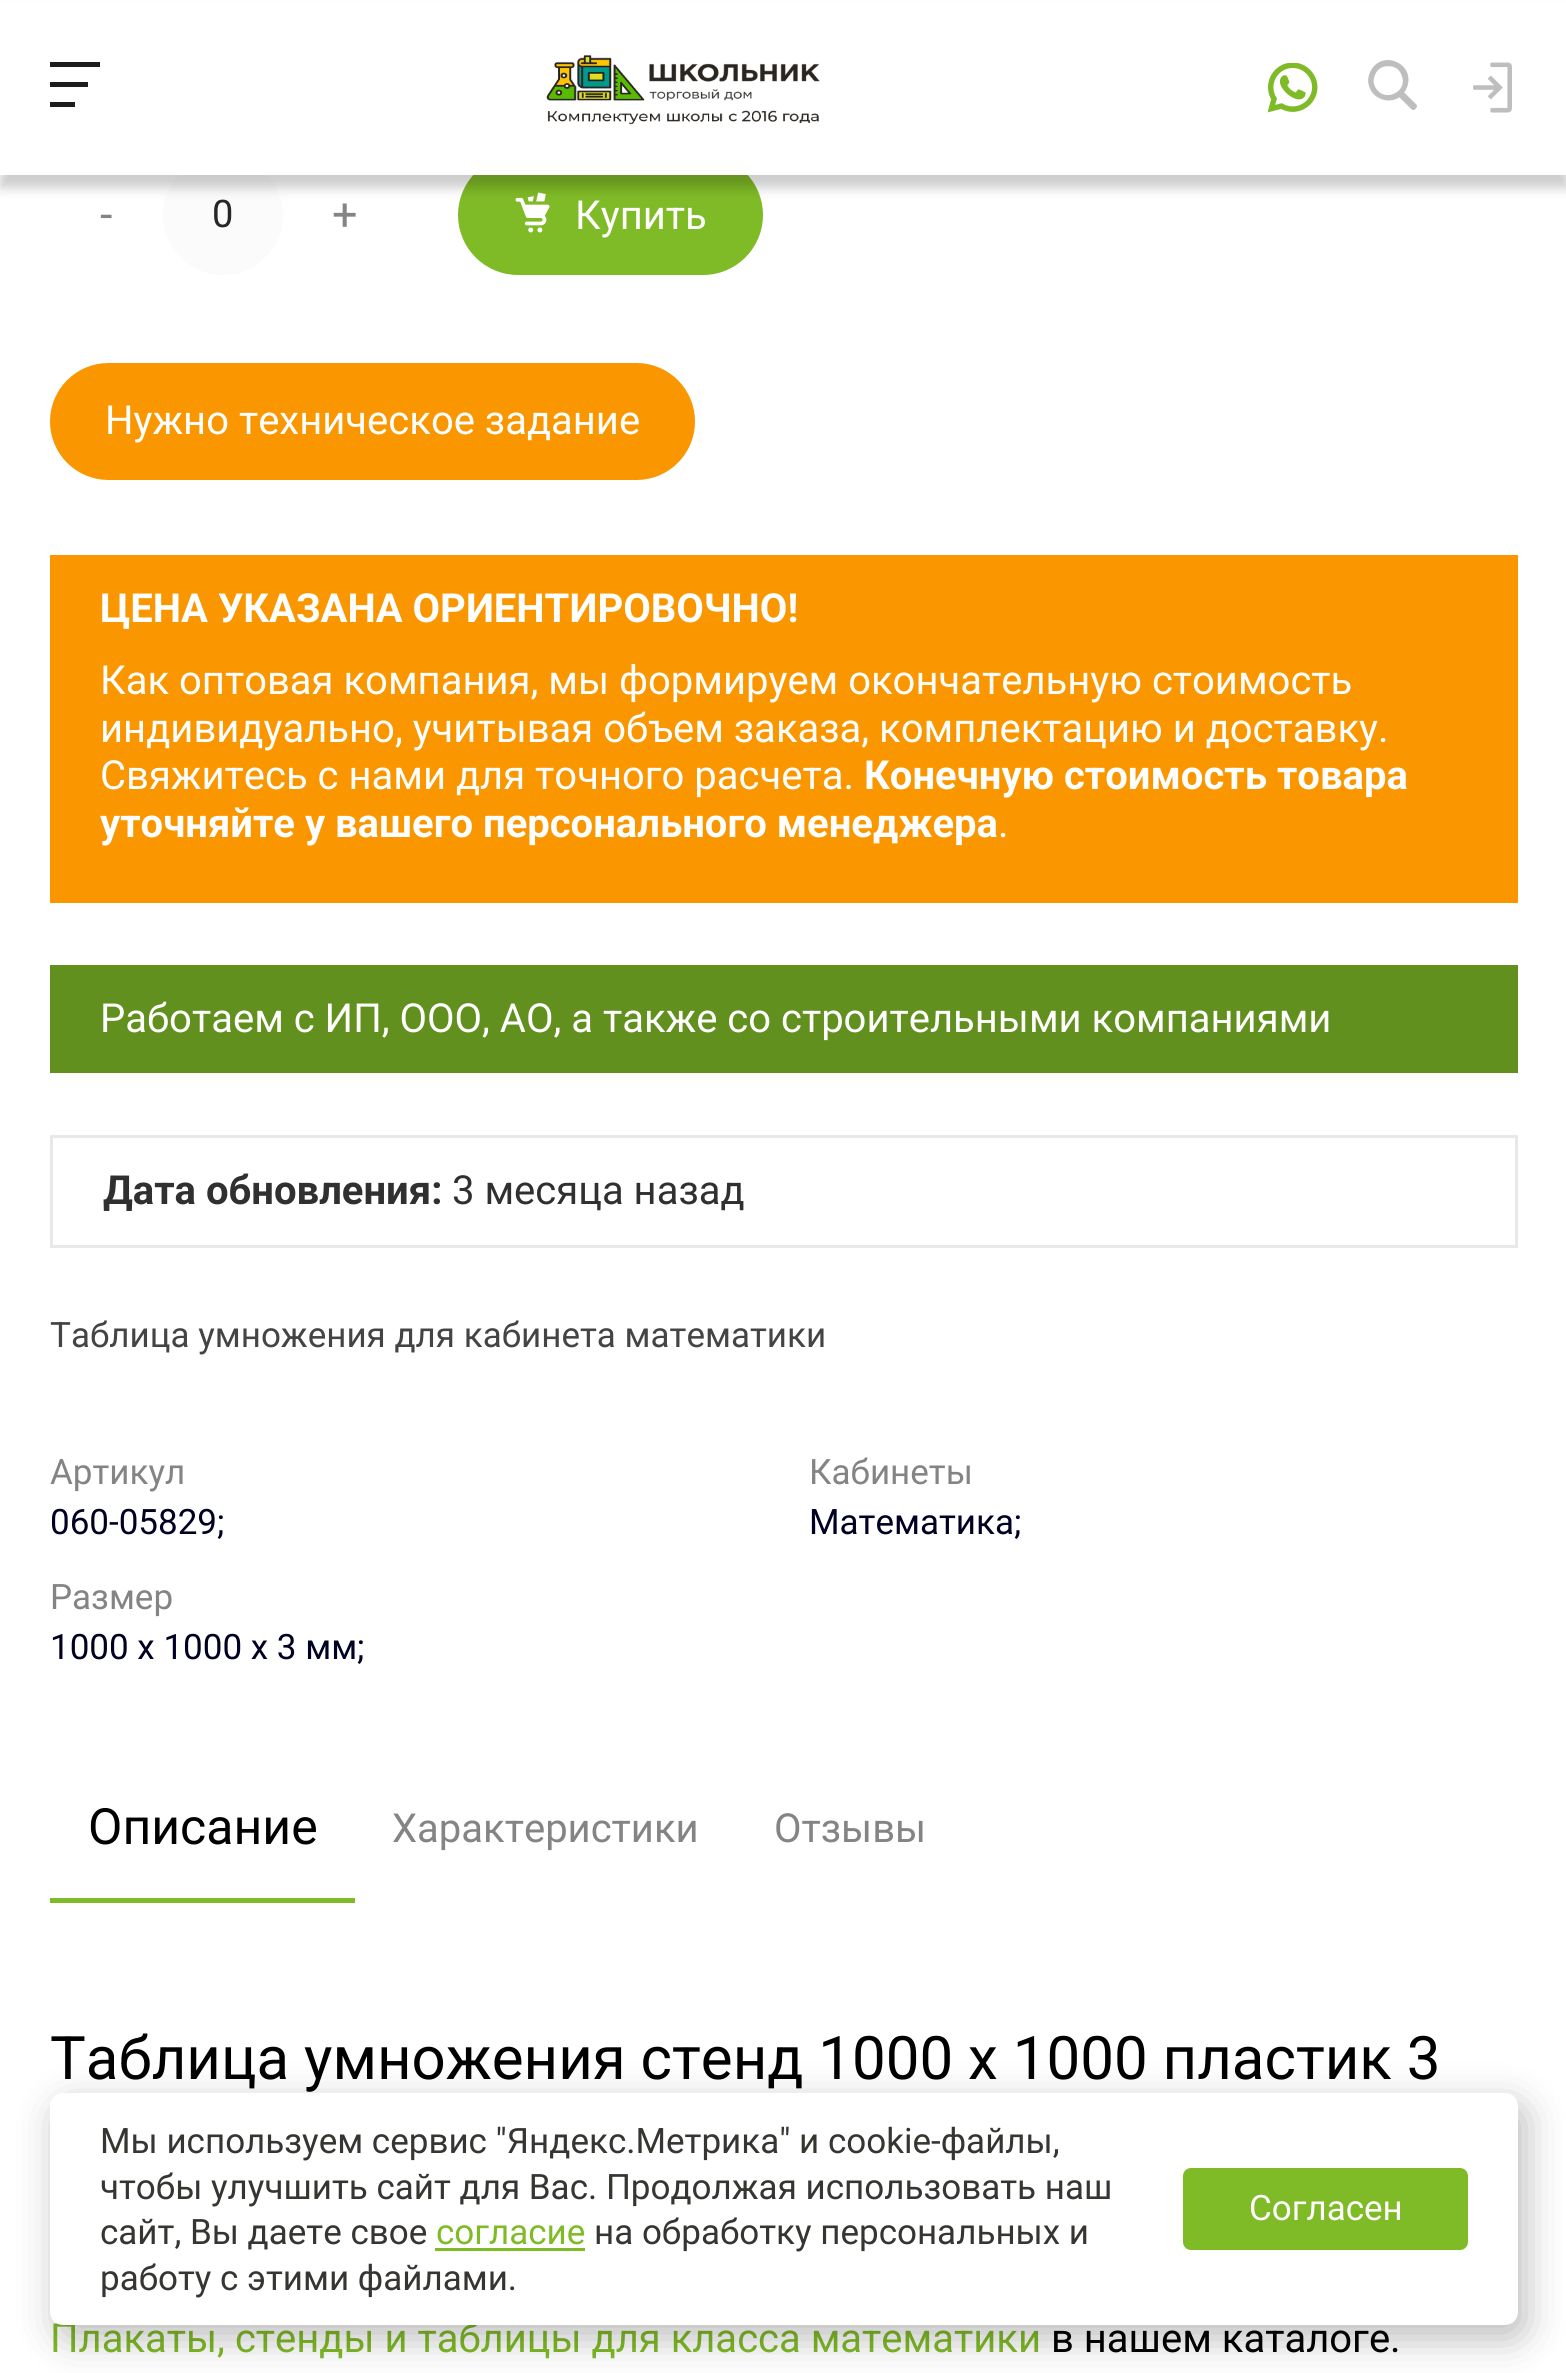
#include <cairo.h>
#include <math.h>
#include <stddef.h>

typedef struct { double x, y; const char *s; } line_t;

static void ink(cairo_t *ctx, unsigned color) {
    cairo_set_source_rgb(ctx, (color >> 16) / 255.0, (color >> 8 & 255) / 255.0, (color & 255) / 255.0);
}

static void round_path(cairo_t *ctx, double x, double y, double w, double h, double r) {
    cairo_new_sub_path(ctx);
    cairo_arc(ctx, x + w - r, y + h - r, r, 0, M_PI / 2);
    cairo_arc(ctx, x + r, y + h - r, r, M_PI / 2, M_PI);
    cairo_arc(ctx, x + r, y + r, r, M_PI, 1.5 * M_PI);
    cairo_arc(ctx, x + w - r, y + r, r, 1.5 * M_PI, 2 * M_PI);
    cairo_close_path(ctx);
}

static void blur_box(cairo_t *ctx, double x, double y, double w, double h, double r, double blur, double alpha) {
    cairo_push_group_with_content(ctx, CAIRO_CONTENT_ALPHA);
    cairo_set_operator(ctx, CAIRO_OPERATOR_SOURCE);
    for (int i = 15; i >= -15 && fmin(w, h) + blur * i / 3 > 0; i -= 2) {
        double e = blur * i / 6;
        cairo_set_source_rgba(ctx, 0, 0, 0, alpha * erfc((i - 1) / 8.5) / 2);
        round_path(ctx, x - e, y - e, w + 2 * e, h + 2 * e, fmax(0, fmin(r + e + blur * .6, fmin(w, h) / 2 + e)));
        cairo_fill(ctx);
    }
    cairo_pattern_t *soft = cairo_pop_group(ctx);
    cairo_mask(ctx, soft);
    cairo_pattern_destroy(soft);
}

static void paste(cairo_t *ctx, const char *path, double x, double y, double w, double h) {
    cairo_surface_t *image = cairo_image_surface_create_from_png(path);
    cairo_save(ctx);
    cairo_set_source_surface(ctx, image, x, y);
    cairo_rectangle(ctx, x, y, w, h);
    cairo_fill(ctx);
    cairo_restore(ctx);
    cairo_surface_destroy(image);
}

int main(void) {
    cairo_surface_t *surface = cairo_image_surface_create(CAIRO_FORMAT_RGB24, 1566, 2373);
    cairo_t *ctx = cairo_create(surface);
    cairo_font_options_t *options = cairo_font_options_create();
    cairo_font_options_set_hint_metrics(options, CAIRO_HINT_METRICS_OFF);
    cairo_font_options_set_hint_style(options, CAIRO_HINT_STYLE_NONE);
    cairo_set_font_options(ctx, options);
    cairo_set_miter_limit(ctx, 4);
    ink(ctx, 0xFFFFFF);
    cairo_paint(ctx);
    ink(ctx, 0xFBFBFB);
    cairo_arc(ctx, 223, 215, 60, 0, 2 * M_PI);
    cairo_fill(ctx);
    ink(ctx, 0x7FBA27);
    round_path(ctx, 460.5, 157.5, 300, 115, 57.5);
    cairo_fill_preserve(ctx);
    cairo_set_line_width(ctx, 5);
    cairo_stroke(ctx);
    paste(ctx, "media/5.png", 515, 192, 35, 41);
    ink(ctx, 0x000000);
    blur_box(ctx, 0, 13, 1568, 175, 0, 6, 0.2);
    ink(ctx, 0xFFFFFF);
    cairo_rectangle(ctx, 0, 3, 1566, 172);
    cairo_fill(ctx);
    ink(ctx, 0x1D1D1D);
    cairo_new_path(ctx);
    cairo_move_to(ctx, 50, 62);
    cairo_line_to(ctx, 50, 67);
    cairo_line_to(ctx, 100, 67);
    cairo_line_to(ctx, 100, 62);
    cairo_close_path(ctx);
    cairo_move_to(ctx, 50, 82);
    cairo_line_to(ctx, 50, 87);
    cairo_line_to(ctx, 88, 87);
    cairo_line_to(ctx, 88, 82);
    cairo_close_path(ctx);
    cairo_move_to(ctx, 50, 102);
    cairo_line_to(ctx, 50, 107);
    cairo_line_to(ctx, 75, 107);
    cairo_line_to(ctx, 75, 102);
    cairo_close_path(ctx);
    cairo_fill(ctx);
    paste(ctx, "media/1.png", 546, 55, 274, 70);
    paste(ctx, "media/2.png", 1268, 63, 50, 50);
    paste(ctx, "media/3.png", 1368, 60, 49, 50);
    paste(ctx, "media/4.png", 1473, 62, 39, 51);
    cairo_select_font_face(ctx, "Roboto", CAIRO_FONT_SLANT_NORMAL, CAIRO_FONT_WEIGHT_NORMAL);
    cairo_set_font_size(ctx, 45);
    ink(ctx, 0x848484);
    cairo_move_to(ctx, 100, 230);
    cairo_show_text(ctx, "-");
    cairo_set_font_size(ctx, 38);
    ink(ctx, 0x272727);
    cairo_move_to(ctx, 212, 227);
    cairo_show_text(ctx, "0");
    cairo_set_font_size(ctx, 45);
    ink(ctx, 0x848484);
    cairo_move_to(ctx, 332, 230);
    cairo_show_text(ctx, "+");
    cairo_set_font_size(ctx, 40);
    ink(ctx, 0xFFFFFF);
    cairo_move_to(ctx, 575, 229);
    cairo_show_text(ctx, "Купить");
    ink(ctx, 0xFA9600);
    round_path(ctx, 52.5, 365.5, 640, 112, 56);
    cairo_fill_preserve(ctx);
    cairo_stroke(ctx);
    ink(ctx, 0xFFFFFF);
    cairo_move_to(ctx, 105, 434);
    cairo_show_text(ctx, "Нужно техническое задание");
    ink(ctx, 0xFA9600);
    cairo_rectangle(ctx, 50, 555, 1468, 348);
    cairo_fill(ctx);
    cairo_select_font_face(ctx, "Roboto", CAIRO_FONT_SLANT_NORMAL, CAIRO_FONT_WEIGHT_BOLD);
    ink(ctx, 0xFFFFFF);
    cairo_move_to(ctx, 100, 622);
    cairo_show_text(ctx, "ЦЕНА УКАЗАНА ОРИЕНТИРОВОЧНО!");
    cairo_select_font_face(ctx, "Roboto", CAIRO_FONT_SLANT_NORMAL, CAIRO_FONT_WEIGHT_NORMAL);
    {
        static const line_t items[] = {
            {100, 694, "Как оптовая компания, мы формируем окончательную стоимость"},
            {100, 742, "индивидуально, учитывая объем заказа, комплектацию и доставку."},
            {100, 789, "Свяжитесь с нами для точного расчета."},
        };
        for (size_t i = 0; i < sizeof items / sizeof *items; i++) {
            cairo_move_to(ctx, items[i].x, items[i].y);
            cairo_show_text(ctx, items[i].s);
        }
    }
    cairo_select_font_face(ctx, "Roboto", CAIRO_FONT_SLANT_NORMAL, CAIRO_FONT_WEIGHT_BOLD);
    cairo_move_to(ctx, 864, 789);
    cairo_show_text(ctx, "Конечную стоимость товара");
    cairo_move_to(ctx, 100, 837);
    cairo_show_text(ctx, "уточняйте у вашего персонального менеджера");
    cairo_select_font_face(ctx, "Roboto", CAIRO_FONT_SLANT_NORMAL, CAIRO_FONT_WEIGHT_NORMAL);
    cairo_move_to(ctx, 998, 837);
    cairo_show_text(ctx, ".");
    ink(ctx, 0x62901E);
    cairo_rectangle(ctx, 50, 965, 1468, 108);
    cairo_fill(ctx);
    ink(ctx, 0xFFFFFF);
    cairo_move_to(ctx, 100, 1032);
    cairo_show_text(ctx, "Работаем с ИП, ООО, АО, а также со строительными компаниями");
    cairo_rectangle(ctx, 51.5, 1136.5, 1465, 110);
    ink(ctx, 0xE8E8E8);
    cairo_set_line_width(ctx, 3);
    cairo_stroke(ctx);
    cairo_select_font_face(ctx, "Roboto", CAIRO_FONT_SLANT_NORMAL, CAIRO_FONT_WEIGHT_BOLD);
    ink(ctx, 0x303030);
    cairo_move_to(ctx, 103, 1204);
    cairo_show_text(ctx, "Дата обновления:");
    cairo_select_font_face(ctx, "Roboto", CAIRO_FONT_SLANT_NORMAL, CAIRO_FONT_WEIGHT_NORMAL);
    cairo_move_to(ctx, 452, 1204);
    cairo_show_text(ctx, "3 месяца назад");
    cairo_set_font_size(ctx, 35);
    ink(ctx, 0x444444);
    cairo_move_to(ctx, 50, 1347);
    cairo_show_text(ctx, "Таблица умножения для кабинета математики");
    ink(ctx, 0x848484);
    cairo_move_to(ctx, 50, 1484);
    cairo_show_text(ctx, "Артикул");
    ink(ctx, 0x000022);
    cairo_move_to(ctx, 50, 1534);
    cairo_show_text(ctx, "060-05829;");
    ink(ctx, 0x848484);
    cairo_move_to(ctx, 809, 1484);
    cairo_show_text(ctx, "Кабинеты");
    ink(ctx, 0x000022);
    cairo_move_to(ctx, 809, 1534);
    cairo_show_text(ctx, "Математика;");
    ink(ctx, 0x848484);
    cairo_move_to(ctx, 50, 1609);
    cairo_show_text(ctx, "Размер");
    ink(ctx, 0x000022);
    cairo_move_to(ctx, 50, 1659);
    cairo_show_text(ctx, "1000 x 1000 x 3 мм;");
    ink(ctx, 0x7FBA27);
    cairo_rectangle(ctx, 50, 1898, 305, 5);
    cairo_fill(ctx);
    cairo_set_font_size(ctx, 50);
    ink(ctx, 0x000000);
    cairo_move_to(ctx, 88, 1844);
    cairo_show_text(ctx, "Описание");
    cairo_set_font_size(ctx, 40);
    ink(ctx, 0x848484);
    cairo_move_to(ctx, 392, 1842);
    cairo_show_text(ctx, "Характеристики");
    cairo_move_to(ctx, 774, 1842);
    cairo_show_text(ctx, "Отзывы");
    cairo_set_font_size(ctx, 60);
    ink(ctx, 0x000000);
    cairo_move_to(ctx, 50, 2079);
    cairo_show_text(ctx, "Таблица умножения стенд 1000 х 1000 пластик 3");
    cairo_set_font_size(ctx, 40);
    ink(ctx, 0x7FBA27);
    cairo_move_to(ctx, 50, 2352);
    cairo_show_text(ctx, "Плакаты, стенды и таблицы для класса математики");
    ink(ctx, 0x000000);
    cairo_move_to(ctx, 1051, 2352);
    cairo_show_text(ctx, "в нашем каталоге.");
    ink(ctx, 0x000000);
    blur_box(ctx, 58, 2105, 1467, 233, 13, 20, 0.27);
    ink(ctx, 0xFFFFFF);
    round_path(ctx, 50, 2093, 1468, 232, 13);
    cairo_fill(ctx);
    cairo_set_font_size(ctx, 35);
    ink(ctx, 0x363532);
    {
        static const line_t items[] = {
            {100, 2153, "Мы используем сервис \"Яндекс.Метрика\" и cookie-файлы,"},
            {100, 2199, "чтобы улучшить сайт для Вас. Продолжая использовать наш"},
            {100, 2244, "сайт, Вы даете свое"},
        };
        for (size_t i = 0; i < sizeof items / sizeof *items; i++) {
            cairo_move_to(ctx, items[i].x, items[i].y);
            cairo_show_text(ctx, items[i].s);
        }
    }
    ink(ctx, 0x7FBA27);
    cairo_move_to(ctx, 436, 2244);
    cairo_show_text(ctx, "согласие");
    cairo_rectangle(ctx, 435, 2248, 150, 3);
    cairo_fill(ctx);
    ink(ctx, 0x363532);
    cairo_move_to(ctx, 594, 2244);
    cairo_show_text(ctx, "на обработку персональных и");
    cairo_move_to(ctx, 100, 2290);
    cairo_show_text(ctx, "работу с этими файлами.");
    ink(ctx, 0x7FBA27);
    round_path(ctx, 1184.5, 2169.5, 282, 79, 6.5);
    cairo_fill_preserve(ctx);
    cairo_stroke(ctx);
    ink(ctx, 0xFFFFFF);
    cairo_move_to(ctx, 1249, 2220);
    cairo_show_text(ctx, "Согласен");
    cairo_surface_write_to_png(surface, "image.png");
    cairo_font_options_destroy(options);
    cairo_destroy(ctx);
    cairo_surface_destroy(surface);
    return 0;
}
